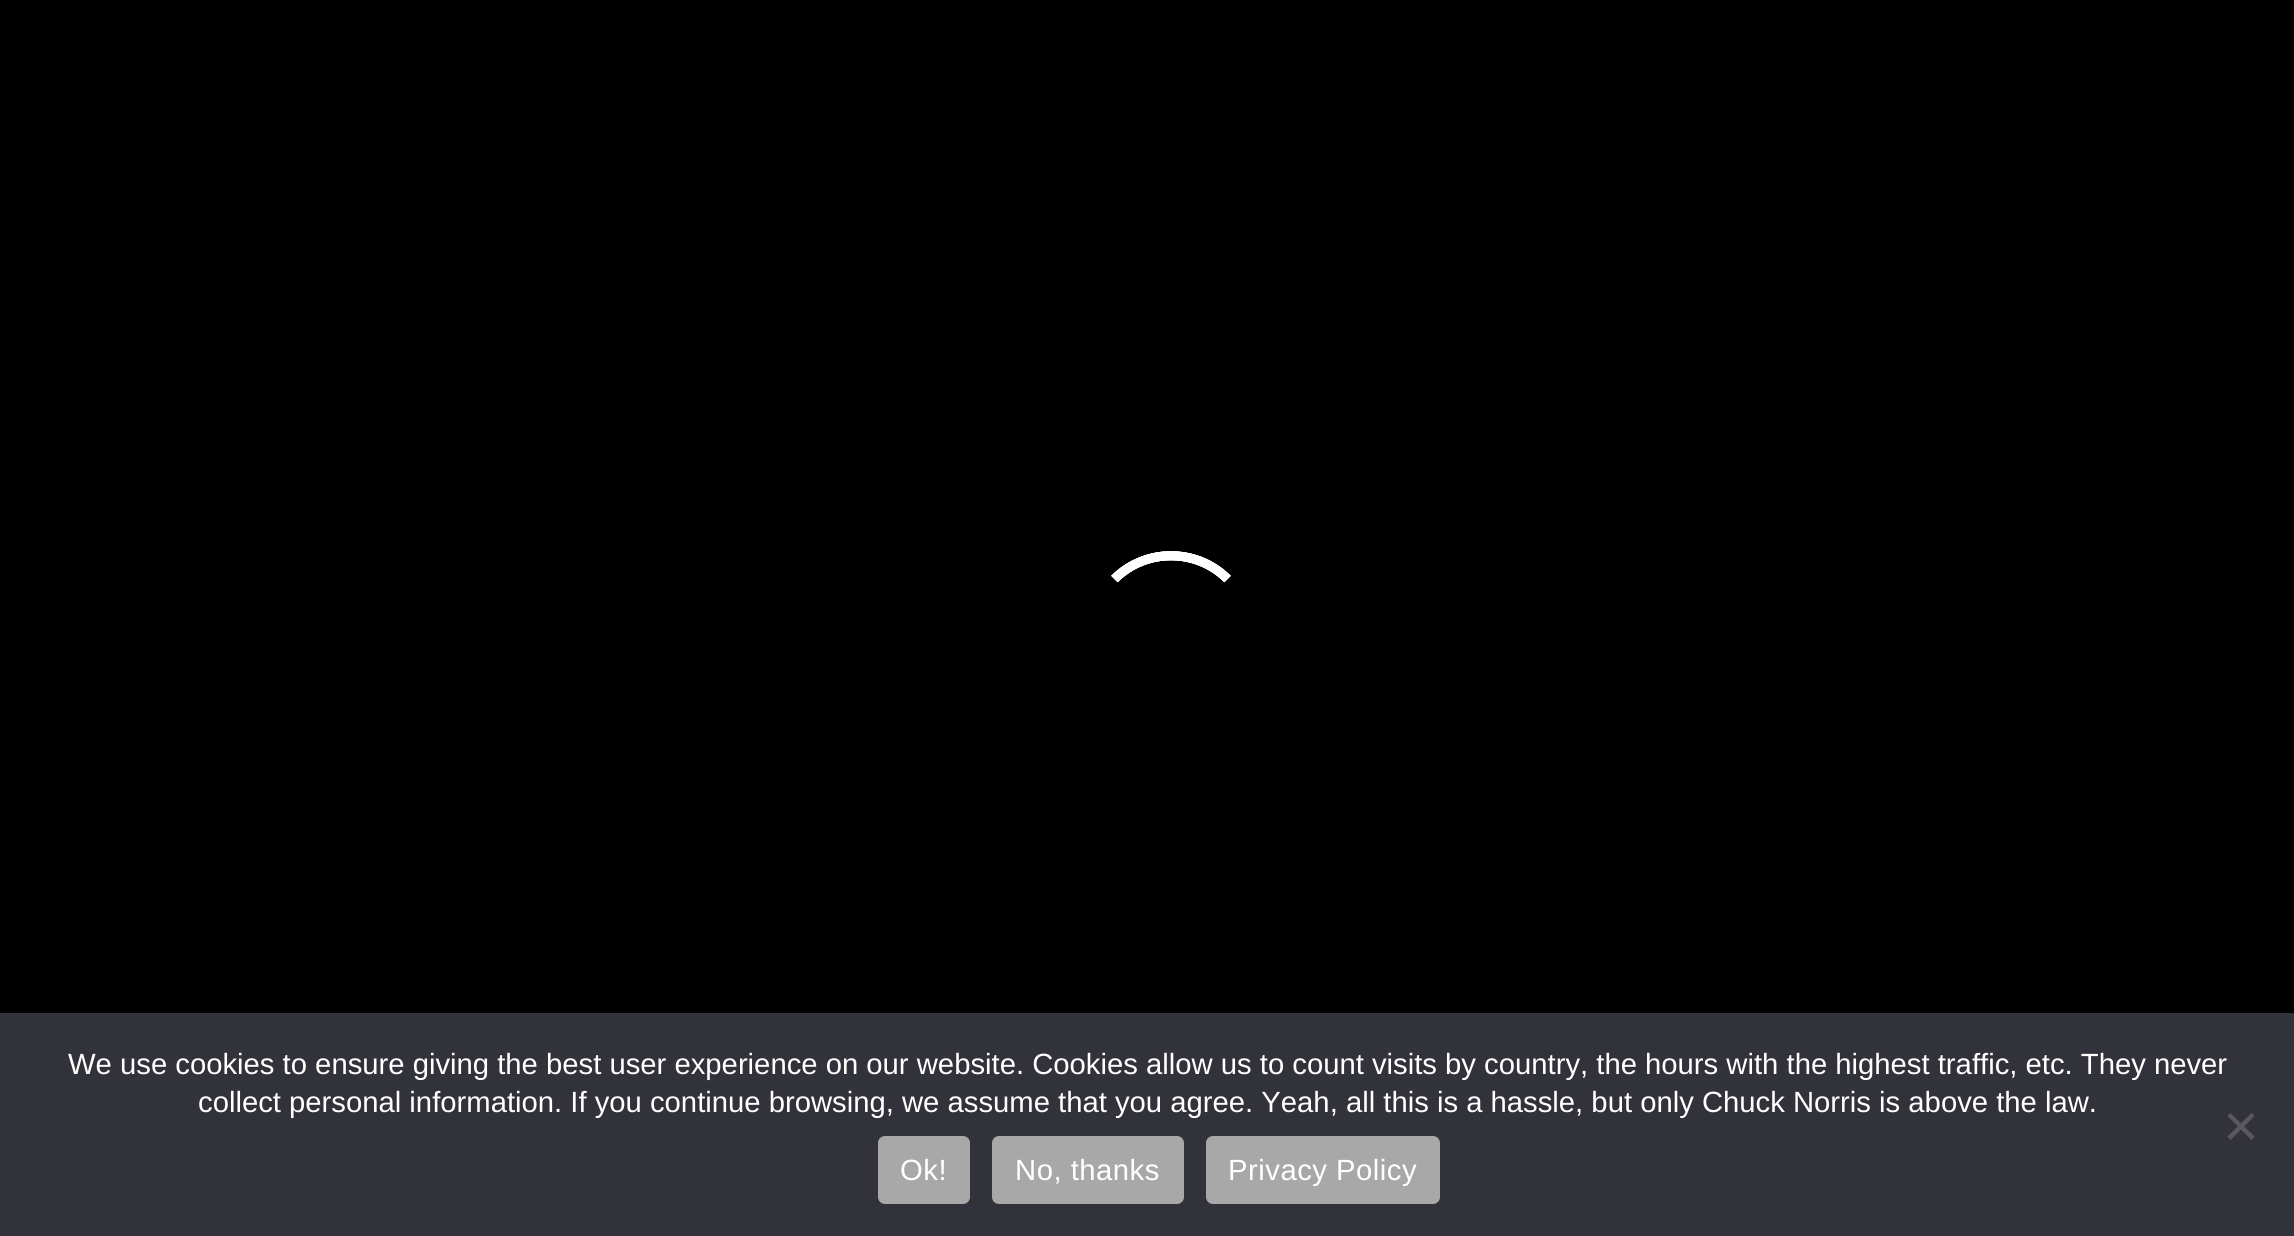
#include <cairo.h>
#include <math.h>
#include <stddef.h>


static void ink(cairo_t *ctx, unsigned color) {
    cairo_set_source_rgb(ctx, (color >> 16) / 255.0, (color >> 8 & 255) / 255.0, (color & 255) / 255.0);
}

static void write_spaced(cairo_t *ctx, double x, double y, const char *s, double letter, double word) {
    cairo_move_to(ctx, x, y);
    while (*s) {
        char ch[5] = {0};
        int n = 0;
        do ch[n++] = *s++; while ((*s & 0xC0) == 0x80);
        cairo_show_text(ctx, ch);
        cairo_rel_move_to(ctx, letter + word * (*ch == ' '), 0);
    }
}

static void round_path(cairo_t *ctx, double x, double y, double w, double h, double r) {
    cairo_new_sub_path(ctx);
    cairo_arc(ctx, x + w - r, y + h - r, r, 0, M_PI / 2);
    cairo_arc(ctx, x + r, y + h - r, r, M_PI / 2, M_PI);
    cairo_arc(ctx, x + r, y + r, r, M_PI, 1.5 * M_PI);
    cairo_arc(ctx, x + w - r, y + r, r, 1.5 * M_PI, 2 * M_PI);
    cairo_close_path(ctx);
}

int main(void) {
    cairo_surface_t *surface = cairo_image_surface_create(CAIRO_FORMAT_RGB24, 2294, 1236);
    cairo_t *ctx = cairo_create(surface);
    cairo_font_options_t *options = cairo_font_options_create();
    cairo_font_options_set_hint_metrics(options, CAIRO_HINT_METRICS_OFF);
    cairo_font_options_set_hint_style(options, CAIRO_HINT_STYLE_NONE);
    cairo_set_font_options(ctx, options);
    cairo_set_miter_limit(ctx, 4);
    ink(ctx, 0x000000);
    cairo_paint(ctx);
    cairo_new_path(ctx);
    cairo_move_to(ctx, 1114.5, 579);
    cairo_curve_to(ctx, 1145.5, 548, 1196.5, 548, 1227.5, 579);
    ink(ctx, 0xFFFFFF);
    cairo_set_line_width(ctx, 9);
    cairo_stroke(ctx);
    cairo_new_path(ctx);
    cairo_move_to(ctx, 1114.5, 579);
    cairo_curve_to(ctx, 1145.5, 548, 1196.5, 548, 1227.5, 579);
    cairo_stroke(ctx);
    cairo_new_path(ctx);
    cairo_move_to(ctx, 1114.5, 579);
    cairo_curve_to(ctx, 1145.5, 548, 1196.5, 548, 1227.5, 579);
    cairo_stroke(ctx);
    cairo_new_path(ctx);
    cairo_move_to(ctx, 1114.5, 579);
    cairo_curve_to(ctx, 1145.5, 548, 1196.5, 548, 1227.5, 579);
    cairo_stroke(ctx);
    ink(ctx, 0x32323A);
    cairo_rectangle(ctx, 0, 1013, 2294, 223);
    cairo_fill(ctx);
    cairo_select_font_face(ctx, "Liberation Sans", CAIRO_FONT_SLANT_NORMAL, CAIRO_FONT_WEIGHT_NORMAL);
    cairo_set_font_size(ctx, 29.25);
    ink(ctx, 0xFFFFFF);
    cairo_move_to(ctx, 68, 1074);
    cairo_show_text(ctx, "We use cookies to ensure giving the best user experience on our website. Cookies allow us to count visits by country, the hours with the highest traffic, etc. They never");
    cairo_move_to(ctx, 198, 1112);
    cairo_show_text(ctx, "collect personal information. If you continue browsing, we assume that you agree. Yeah, all this is a hassle, but only Chuck Norris is above the law.");
    ink(ctx, 0x59595D);
    cairo_new_path(ctx);
    cairo_move_to(ctx, 2251.5, 1113);
    cairo_line_to(ctx, 2254.5, 1116);
    cairo_line_to(ctx, 2230.5, 1140);
    cairo_line_to(ctx, 2227.5, 1136.5);
    cairo_close_path(ctx);
    cairo_fill(ctx);
    cairo_new_path(ctx);
    cairo_move_to(ctx, 2227.5, 1116);
    cairo_line_to(ctx, 2230.5, 1113);
    cairo_line_to(ctx, 2254.5, 1136.5);
    cairo_line_to(ctx, 2251.5, 1140);
    cairo_close_path(ctx);
    cairo_fill(ctx);
    ink(ctx, 0xA8A8A8);
    round_path(ctx, 878, 1136, 92, 68, 7);
    cairo_fill(ctx);
    ink(ctx, 0xFFFFFF);
    write_spaced(ctx, 900, 1180, "Ok!", 0.5, 0);
    ink(ctx, 0xA8A8A8);
    round_path(ctx, 992, 1136, 192, 68, 7);
    cairo_fill(ctx);
    ink(ctx, 0xFFFFFF);
    write_spaced(ctx, 1015, 1180, "No, thanks", 0.5, 0);
    ink(ctx, 0xA8A8A8);
    round_path(ctx, 1206, 1136, 234, 68, 7);
    cairo_fill(ctx);
    ink(ctx, 0xFFFFFF);
    write_spaced(ctx, 1228, 1180, "Privacy Policy", 0.5, 0);
    cairo_surface_write_to_png(surface, "image.png");
    cairo_font_options_destroy(options);
    cairo_destroy(ctx);
    cairo_surface_destroy(surface);
    return 0;
}
